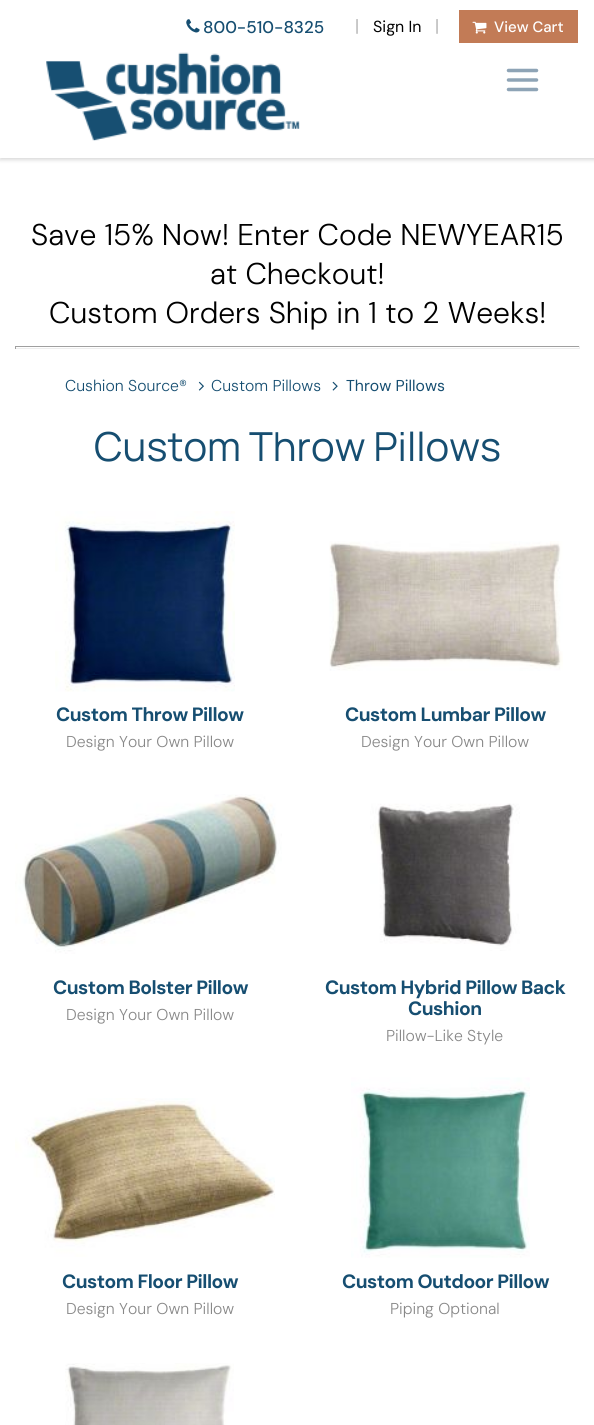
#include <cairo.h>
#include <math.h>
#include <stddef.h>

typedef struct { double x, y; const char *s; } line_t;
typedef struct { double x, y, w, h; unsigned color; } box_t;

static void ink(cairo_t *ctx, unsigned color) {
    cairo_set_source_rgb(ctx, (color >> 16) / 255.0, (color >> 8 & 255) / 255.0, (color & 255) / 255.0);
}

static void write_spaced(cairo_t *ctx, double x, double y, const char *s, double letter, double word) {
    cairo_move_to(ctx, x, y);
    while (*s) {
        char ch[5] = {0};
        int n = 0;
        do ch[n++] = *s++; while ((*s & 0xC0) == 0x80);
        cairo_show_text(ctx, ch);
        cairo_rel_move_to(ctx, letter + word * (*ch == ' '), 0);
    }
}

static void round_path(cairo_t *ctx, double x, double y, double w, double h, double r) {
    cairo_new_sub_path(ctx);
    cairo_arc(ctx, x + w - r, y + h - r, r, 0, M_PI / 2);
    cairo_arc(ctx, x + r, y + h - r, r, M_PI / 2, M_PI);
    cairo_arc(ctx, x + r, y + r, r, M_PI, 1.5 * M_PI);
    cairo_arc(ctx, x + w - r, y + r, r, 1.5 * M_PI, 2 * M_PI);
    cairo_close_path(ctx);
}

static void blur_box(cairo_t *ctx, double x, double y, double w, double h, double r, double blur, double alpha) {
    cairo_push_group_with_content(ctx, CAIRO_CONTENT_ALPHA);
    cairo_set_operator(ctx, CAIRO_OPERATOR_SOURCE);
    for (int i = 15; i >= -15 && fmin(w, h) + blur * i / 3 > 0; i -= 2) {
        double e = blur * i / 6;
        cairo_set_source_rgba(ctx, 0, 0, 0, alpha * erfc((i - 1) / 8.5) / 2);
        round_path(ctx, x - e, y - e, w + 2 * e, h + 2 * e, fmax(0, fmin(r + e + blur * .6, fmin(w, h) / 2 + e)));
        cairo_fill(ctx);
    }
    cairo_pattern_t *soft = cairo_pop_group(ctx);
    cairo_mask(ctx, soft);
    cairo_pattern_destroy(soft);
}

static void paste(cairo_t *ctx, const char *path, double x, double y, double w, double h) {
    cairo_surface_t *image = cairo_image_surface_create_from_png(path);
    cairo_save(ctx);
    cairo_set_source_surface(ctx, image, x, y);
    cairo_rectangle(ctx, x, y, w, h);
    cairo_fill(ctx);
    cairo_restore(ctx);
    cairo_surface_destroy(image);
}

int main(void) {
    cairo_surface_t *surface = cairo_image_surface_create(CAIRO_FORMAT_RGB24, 594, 1425);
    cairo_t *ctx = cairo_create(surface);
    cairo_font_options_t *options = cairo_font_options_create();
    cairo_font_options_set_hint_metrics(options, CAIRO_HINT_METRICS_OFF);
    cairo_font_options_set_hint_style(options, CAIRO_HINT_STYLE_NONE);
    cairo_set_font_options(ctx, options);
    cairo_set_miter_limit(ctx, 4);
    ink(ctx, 0xFFFFFF);
    cairo_paint(ctx);
    ink(ctx, 0x000000);
    blur_box(ctx, 0, 3, 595, 157, 0, 2, 0.15);
    ink(ctx, 0xFFFFFF);
    cairo_rectangle(ctx, 0, 0, 594, 158);
    cairo_fill(ctx);
    paste(ctx, "media/1.png", 186, 19, 14, 14);
    cairo_select_font_face(ctx, "DM Sans Medium", CAIRO_FONT_SLANT_NORMAL, CAIRO_FONT_WEIGHT_NORMAL);
    cairo_set_font_size(ctx, 17);
    ink(ctx, 0x164E71);
    cairo_move_to(ctx, 203, 33);
    cairo_show_text(ctx, "800-510-8325");
    cairo_select_font_face(ctx, "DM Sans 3 Light", CAIRO_FONT_SLANT_NORMAL, CAIRO_FONT_WEIGHT_NORMAL);
    cairo_set_font_size(ctx, 18);
    ink(ctx, 0xAAAAAA);
    cairo_move_to(ctx, 355, 32);
    cairo_show_text(ctx, "|");
    cairo_select_font_face(ctx, "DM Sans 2", CAIRO_FONT_SLANT_NORMAL, CAIRO_FONT_WEIGHT_NORMAL);
    cairo_set_font_size(ctx, 16);
    ink(ctx, 0x000000);
    cairo_move_to(ctx, 373, 32);
    cairo_show_text(ctx, "Sign In");
    cairo_select_font_face(ctx, "DM Sans 3 Light", CAIRO_FONT_SLANT_NORMAL, CAIRO_FONT_WEIGHT_NORMAL);
    cairo_set_font_size(ctx, 18);
    ink(ctx, 0xAAAAAA);
    cairo_move_to(ctx, 435, 32);
    cairo_show_text(ctx, "|");
    ink(ctx, 0xC27B56);
    cairo_rectangle(ctx, 459, 10, 119, 33);
    cairo_fill(ctx);
    paste(ctx, "media/2.png", 472, 21, 15, 13);
    cairo_select_font_face(ctx, "DM Sans 2 Medium", CAIRO_FONT_SLANT_NORMAL, CAIRO_FONT_WEIGHT_NORMAL);
    cairo_set_font_size(ctx, 15);
    ink(ctx, 0xFFFFFF);
    cairo_move_to(ctx, 494, 32);
    cairo_show_text(ctx, "View Cart");
    paste(ctx, "media/3.png", 46, 52, 254, 89);
    cairo_new_path(ctx);
    cairo_move_to(ctx, 508.5, 70.5);
    cairo_line_to(ctx, 536.5, 70.5);
    cairo_move_to(ctx, 508.5, 80);
    cairo_line_to(ctx, 536.5, 80);
    cairo_move_to(ctx, 508.5, 89.5);
    cairo_line_to(ctx, 536.5, 89.5);
    ink(ctx, 0x8EA4B6);
    cairo_set_line_width(ctx, 3.5);
    cairo_set_line_cap(ctx, CAIRO_LINE_CAP_ROUND);
    cairo_set_line_join(ctx, CAIRO_LINE_JOIN_ROUND);
    cairo_stroke(ctx);
    cairo_select_font_face(ctx, "DM Sans Light", CAIRO_FONT_SLANT_NORMAL, CAIRO_FONT_WEIGHT_NORMAL);
    cairo_set_font_size(ctx, 30);
    ink(ctx, 0x000000);
    {
        static const line_t items[] = {
            {31, 245, "Save 15% Now! Enter Code NEWYEAR15"},
            {210, 284, "at Checkout!"},
            {49, 323, "Custom Orders Ship in 1 to 2 Weeks!"},
        };
        for (size_t i = 0; i < sizeof items / sizeof *items; i++) {
            cairo_move_to(ctx, items[i].x, items[i].y);
            cairo_show_text(ctx, items[i].s);
        }
    }
    {
        static const box_t items[] = {
            {15, 346, 565, 1, 0x9F9F9F},
            {579, 346, 1, 3, 0xEEEEEE},
            {15, 348, 565, 1, 0xEEEEEE},
            {15, 346, 1, 3, 0x9F9F9F},
        };
        for (size_t i = 0; i < sizeof items / sizeof *items; i++) {
            ink(ctx, items[i].color);
            cairo_rectangle(ctx, items[i].x, items[i].y, items[i].w, items[i].h);
            cairo_fill(ctx);
        }
    }
    cairo_select_font_face(ctx, "DM Sans 2 Light", CAIRO_FONT_SLANT_NORMAL, CAIRO_FONT_WEIGHT_NORMAL);
    cairo_set_font_size(ctx, 15.75);
    ink(ctx, 0x164E71);
    cairo_move_to(ctx, 65, 391);
    cairo_show_text(ctx, "Cushion Source®");
    paste(ctx, "media/4.png", 198, 381, 6, 10);
    cairo_move_to(ctx, 211, 391);
    cairo_show_text(ctx, "Custom Pillows");
    paste(ctx, "media/5.png", 332, 381, 6, 10);
    cairo_select_font_face(ctx, "DM Sans", CAIRO_FONT_SLANT_NORMAL, CAIRO_FONT_WEIGHT_NORMAL);
    cairo_move_to(ctx, 346, 391);
    cairo_show_text(ctx, "Throw Pillows");
    cairo_select_font_face(ctx, "Manrope", CAIRO_FONT_SLANT_NORMAL, CAIRO_FONT_WEIGHT_NORMAL);
    cairo_set_font_size(ctx, 40);
    cairo_move_to(ctx, 94, 461);
    cairo_show_text(ctx, "Custom Throw Pillows");
    paste(ctx, "media/6.png", 55, 511, 180, 181);
    cairo_select_font_face(ctx, "DM Sans", CAIRO_FONT_SLANT_NORMAL, CAIRO_FONT_WEIGHT_BOLD);
    cairo_set_font_size(ctx, 19.25);
    write_spaced(ctx, 56, 721, "Custom Throw Pillow", -0.5, 0);
    cairo_select_font_face(ctx, "DM Sans 2 Light", CAIRO_FONT_SLANT_NORMAL, CAIRO_FONT_WEIGHT_NORMAL);
    cairo_set_font_size(ctx, 15.75);
    ink(ctx, 0x888888);
    cairo_move_to(ctx, 66, 747);
    cairo_show_text(ctx, "Design Your Own Pillow");
    paste(ctx, "media/7.png", 329, 541, 234, 130);
    cairo_select_font_face(ctx, "DM Sans", CAIRO_FONT_SLANT_NORMAL, CAIRO_FONT_WEIGHT_BOLD);
    cairo_set_font_size(ctx, 19.25);
    ink(ctx, 0x164E71);
    write_spaced(ctx, 345, 721, "Custom Lumbar Pillow", -0.5, 0);
    cairo_select_font_face(ctx, "DM Sans 2 Light", CAIRO_FONT_SLANT_NORMAL, CAIRO_FONT_WEIGHT_NORMAL);
    cairo_set_font_size(ctx, 15.75);
    ink(ctx, 0x888888);
    cairo_move_to(ctx, 361, 747);
    cairo_show_text(ctx, "Design Your Own Pillow");
    paste(ctx, "media/8.png", 15, 794, 267, 160);
    cairo_select_font_face(ctx, "DM Sans", CAIRO_FONT_SLANT_NORMAL, CAIRO_FONT_WEIGHT_BOLD);
    cairo_set_font_size(ctx, 19.25);
    ink(ctx, 0x164E71);
    write_spaced(ctx, 53, 994, "Custom Bolster Pillow", -0.5, 0);
    cairo_select_font_face(ctx, "DM Sans 2 Light", CAIRO_FONT_SLANT_NORMAL, CAIRO_FONT_WEIGHT_NORMAL);
    cairo_set_font_size(ctx, 15.75);
    ink(ctx, 0x888888);
    cairo_move_to(ctx, 66, 1020);
    cairo_show_text(ctx, "Design Your Own Pillow");
    paste(ctx, "media/9.png", 370, 803, 150, 148);
    cairo_select_font_face(ctx, "DM Sans", CAIRO_FONT_SLANT_NORMAL, CAIRO_FONT_WEIGHT_BOLD);
    cairo_set_font_size(ctx, 19.25);
    ink(ctx, 0x164E71);
    write_spaced(ctx, 325, 994, "Custom Hybrid Pillow Back", -0.5, 0);
    write_spaced(ctx, 408, 1015, "Cushion", -0.5, 0);
    cairo_select_font_face(ctx, "DM Sans 2 Light", CAIRO_FONT_SLANT_NORMAL, CAIRO_FONT_WEIGHT_NORMAL);
    cairo_set_font_size(ctx, 15.75);
    ink(ctx, 0x888888);
    cairo_move_to(ctx, 386, 1041);
    cairo_show_text(ctx, "Pillow-Like Style");
    paste(ctx, "media/10.png", 15, 1098, 260, 159);
    cairo_select_font_face(ctx, "DM Sans", CAIRO_FONT_SLANT_NORMAL, CAIRO_FONT_WEIGHT_BOLD);
    cairo_set_font_size(ctx, 19.25);
    ink(ctx, 0x164E71);
    write_spaced(ctx, 62, 1288, "Custom Floor Pillow", -0.5, 0);
    cairo_select_font_face(ctx, "DM Sans 2 Light", CAIRO_FONT_SLANT_NORMAL, CAIRO_FONT_WEIGHT_NORMAL);
    cairo_set_font_size(ctx, 15.75);
    ink(ctx, 0x888888);
    cairo_move_to(ctx, 66, 1314);
    cairo_show_text(ctx, "Design Your Own Pillow");
    paste(ctx, "media/11.png", 351, 1077, 179, 181);
    cairo_select_font_face(ctx, "DM Sans", CAIRO_FONT_SLANT_NORMAL, CAIRO_FONT_WEIGHT_BOLD);
    cairo_set_font_size(ctx, 19.25);
    ink(ctx, 0x164E71);
    write_spaced(ctx, 342, 1288, "Custom Outdoor Pillow", -0.5, 0);
    cairo_select_font_face(ctx, "DM Sans 2 Light", CAIRO_FONT_SLANT_NORMAL, CAIRO_FONT_WEIGHT_NORMAL);
    cairo_set_font_size(ctx, 15.75);
    ink(ctx, 0x888888);
    cairo_move_to(ctx, 390, 1314);
    cairo_show_text(ctx, "Piping Optional");
    paste(ctx, "media/12.png", 65, 1363, 169, 62);
    cairo_surface_write_to_png(surface, "image.png");
    cairo_font_options_destroy(options);
    cairo_destroy(ctx);
    cairo_surface_destroy(surface);
    return 0;
}
